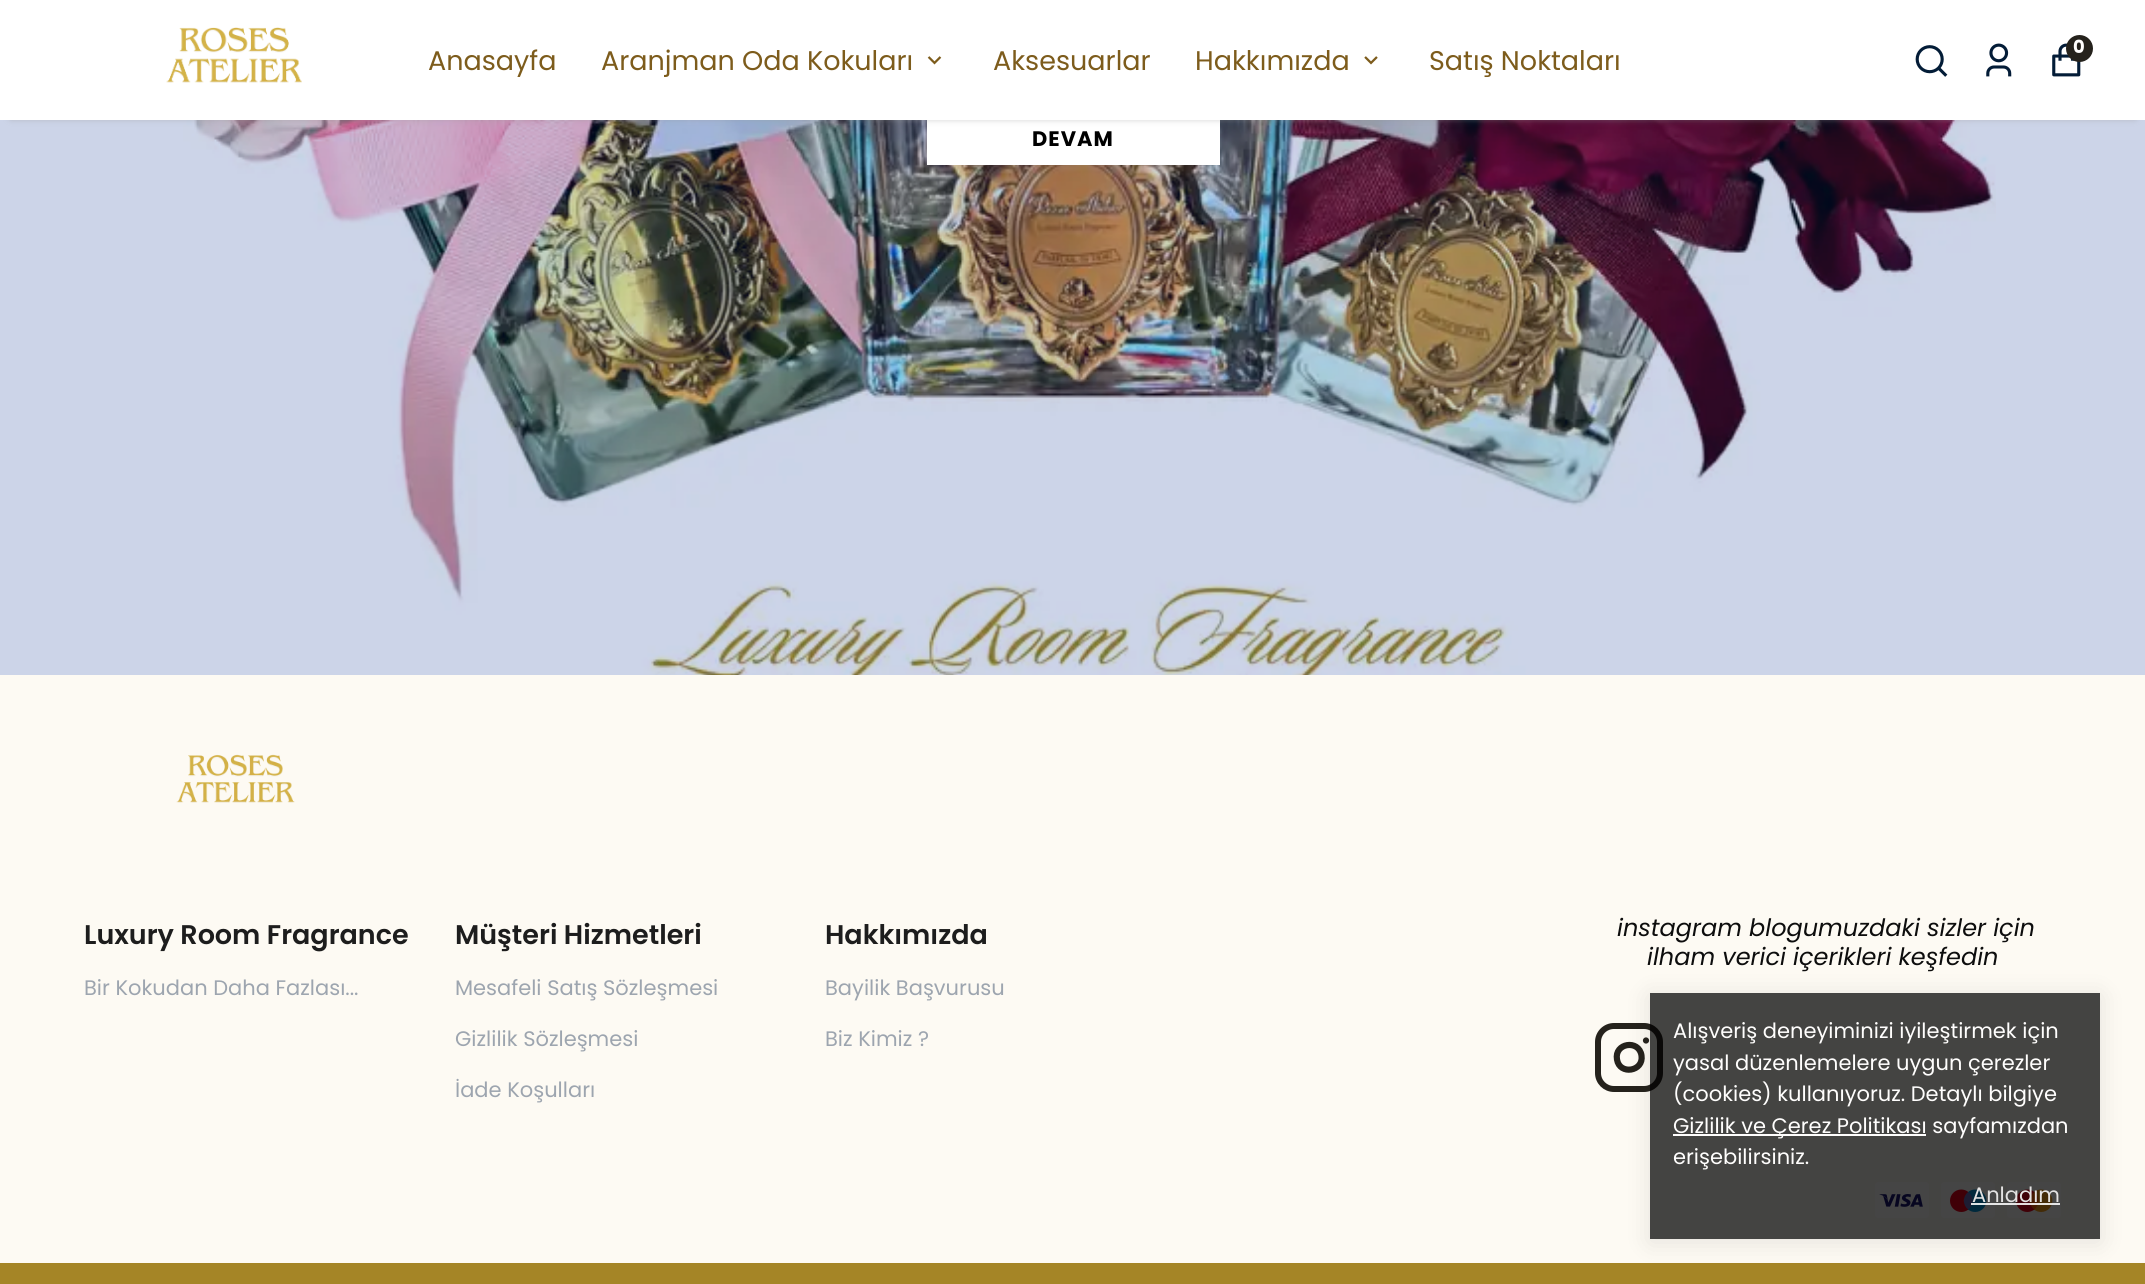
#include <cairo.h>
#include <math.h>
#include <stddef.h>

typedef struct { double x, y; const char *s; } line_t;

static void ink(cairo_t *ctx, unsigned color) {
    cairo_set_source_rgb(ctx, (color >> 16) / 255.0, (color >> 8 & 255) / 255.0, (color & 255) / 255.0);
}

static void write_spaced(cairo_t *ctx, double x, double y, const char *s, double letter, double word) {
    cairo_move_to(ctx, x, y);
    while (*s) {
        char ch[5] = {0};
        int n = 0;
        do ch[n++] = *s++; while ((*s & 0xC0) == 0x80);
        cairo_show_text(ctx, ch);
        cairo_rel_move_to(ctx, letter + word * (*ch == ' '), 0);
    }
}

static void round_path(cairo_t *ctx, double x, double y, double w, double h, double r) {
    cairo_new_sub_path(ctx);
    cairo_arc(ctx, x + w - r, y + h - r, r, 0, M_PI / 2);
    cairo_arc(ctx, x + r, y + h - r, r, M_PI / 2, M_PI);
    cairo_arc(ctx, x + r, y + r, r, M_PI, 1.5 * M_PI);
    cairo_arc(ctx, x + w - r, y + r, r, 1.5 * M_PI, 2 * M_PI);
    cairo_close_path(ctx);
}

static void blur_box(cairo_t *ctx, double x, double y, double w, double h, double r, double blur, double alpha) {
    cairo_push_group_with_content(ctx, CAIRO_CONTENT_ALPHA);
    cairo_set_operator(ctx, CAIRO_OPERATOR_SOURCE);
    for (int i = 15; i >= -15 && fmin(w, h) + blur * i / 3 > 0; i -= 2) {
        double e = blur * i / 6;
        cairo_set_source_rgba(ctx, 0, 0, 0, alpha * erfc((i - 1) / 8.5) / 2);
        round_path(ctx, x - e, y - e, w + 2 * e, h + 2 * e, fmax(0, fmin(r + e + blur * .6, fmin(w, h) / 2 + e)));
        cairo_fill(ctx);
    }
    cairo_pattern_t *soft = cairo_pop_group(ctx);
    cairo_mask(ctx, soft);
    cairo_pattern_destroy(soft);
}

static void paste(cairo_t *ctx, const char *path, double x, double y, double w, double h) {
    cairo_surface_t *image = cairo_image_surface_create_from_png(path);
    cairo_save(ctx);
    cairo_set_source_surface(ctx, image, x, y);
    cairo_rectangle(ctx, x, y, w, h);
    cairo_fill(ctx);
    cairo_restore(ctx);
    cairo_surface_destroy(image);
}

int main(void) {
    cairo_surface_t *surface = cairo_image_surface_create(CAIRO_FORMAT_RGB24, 2145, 1284);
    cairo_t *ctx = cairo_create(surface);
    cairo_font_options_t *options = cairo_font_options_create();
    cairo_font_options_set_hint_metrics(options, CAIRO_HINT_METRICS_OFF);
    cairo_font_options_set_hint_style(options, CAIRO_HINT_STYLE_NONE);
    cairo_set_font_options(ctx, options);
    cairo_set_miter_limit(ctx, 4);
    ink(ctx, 0xCCD4E8);
    cairo_paint(ctx);
    paste(ctx, "media/7.png", 183, 120, 1813, 555);
    ink(ctx, 0xFFFFFF);
    cairo_rectangle(ctx, 927, 120, 293, 45);
    cairo_fill(ctx);
    ink(ctx, 0x989898);
    blur_box(ctx, 11, 18, 2124, 99, 0, 4, 1);
    ink(ctx, 0xFFFFFF);
    cairo_rectangle(ctx, 0, 0, 2145, 120);
    cairo_fill(ctx);
    paste(ctx, "media/1.png", 166, 27, 136, 56);
    paste(ctx, "media/2.png", 1915, 45, 33, 32);
    paste(ctx, "media/3.png", 1986, 43, 26, 34);
    paste(ctx, "media/4.png", 2052, 43, 29, 34);
    ink(ctx, 0x25221C);
    cairo_arc(ctx, 2079.5, 48.5, 13.5, 0, 2 * M_PI);
    cairo_fill(ctx);
    cairo_select_font_face(ctx, "Poppins", CAIRO_FONT_SLANT_NORMAL, CAIRO_FONT_WEIGHT_BOLD);
    cairo_set_font_size(ctx, 18);
    ink(ctx, 0xFFFEFD);
    cairo_move_to(ctx, 2073, 53);
    cairo_show_text(ctx, "0");
    cairo_select_font_face(ctx, "Poppins", CAIRO_FONT_SLANT_NORMAL, CAIRO_FONT_WEIGHT_NORMAL);
    cairo_set_font_size(ctx, 27);
    ink(ctx, 0x7D5C1C);
    cairo_move_to(ctx, 428, 70);
    cairo_show_text(ctx, "Anasayfa");
    cairo_move_to(ctx, 601, 70);
    cairo_show_text(ctx, "Aranjman Oda Kokuları");
    paste(ctx, "media/5.png", 927, 56, 15, 9);
    cairo_move_to(ctx, 993, 70);
    cairo_show_text(ctx, "Aksesuarlar");
    cairo_move_to(ctx, 1195, 70);
    cairo_show_text(ctx, "Hakkımızda");
    paste(ctx, "media/6.png", 1364, 56, 14, 9);
    cairo_move_to(ctx, 1429, 70);
    cairo_show_text(ctx, "Satış Noktaları");
    ink(ctx, 0xFDFAF3);
    cairo_rectangle(ctx, 0, 675, 2145, 588);
    cairo_fill(ctx);
    round_path(ctx, 1598, 1026, 62, 63, 16);
    ink(ctx, 0x25221C);
    cairo_set_line_width(ctx, 6);
    cairo_stroke(ctx);
    cairo_new_path(ctx);
    cairo_move_to(ctx, 1641.5, 1055.5);
    cairo_curve_to(ctx, 1644, 1071.5, 1619.5, 1075.5, 1617, 1059.5);
    cairo_curve_to(ctx, 1614, 1043, 1639, 1039, 1641.5, 1055.5);
    cairo_close_path(ctx);
    cairo_move_to(ctx, 1646, 1040.5);
    cairo_line_to(ctx, 1646, 1040.5);
    cairo_set_line_width(ctx, 6.2);
    cairo_set_line_cap(ctx, CAIRO_LINE_CAP_ROUND);
    cairo_set_line_join(ctx, CAIRO_LINE_JOIN_ROUND);
    cairo_stroke(ctx);
    paste(ctx, "media/9.png", 1875, 1182, 54, 36);
    paste(ctx, "media/10.png", 1941, 1182, 54, 36);
    paste(ctx, "media/11.png", 2007, 1182, 54, 36);
    ink(ctx, 0xA58526);
    cairo_rectangle(ctx, 0, 1263, 2145, 21);
    cairo_fill(ctx);
    cairo_save(ctx);
    cairo_set_fill_rule(ctx, CAIRO_FILL_RULE_EVEN_ODD);
    cairo_new_path(ctx);
    cairo_move_to(ctx, 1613, 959);
    cairo_line_to(ctx, 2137, 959);
    cairo_line_to(ctx, 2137, 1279);
    cairo_line_to(ctx, 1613, 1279);
    cairo_close_path(ctx);
    cairo_move_to(ctx, 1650, 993);
    cairo_line_to(ctx, 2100, 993);
    cairo_line_to(ctx, 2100, 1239);
    cairo_line_to(ctx, 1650, 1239);
    cairo_close_path(ctx);
    cairo_clip(ctx);
    ink(ctx, 0x000000);
    blur_box(ctx, 1650, 996, 450, 246, 0, 12, 0.1);
    cairo_restore(ctx);
    cairo_set_source_rgba(ctx, 0, 0, 0, 0.73);
    cairo_rectangle(ctx, 1650, 993, 450, 246);
    cairo_fill(ctx);
    cairo_set_font_size(ctx, 21);
    ink(ctx, 0xFFFEFD);
    {
        static const line_t items[] = {
            {1673, 1038, "Alışveriş deneyiminizi iyileştirmek için"},
            {1673, 1070, "yasal düzenlemelere uygun çerezler"},
            {1673, 1101, "(cookies) kullanıyoruz. Detaylı bilgiye"},
        };
        for (size_t i = 0; i < sizeof items / sizeof *items; i++) {
            cairo_move_to(ctx, items[i].x, items[i].y);
            cairo_show_text(ctx, items[i].s);
        }
    }
    cairo_rectangle(ctx, 1673, 1134, 253, 2);
    cairo_fill(ctx);
    cairo_move_to(ctx, 1673, 1133);
    cairo_show_text(ctx, "Gizlilik ve Çerez Politikası sayfamızdan");
    cairo_move_to(ctx, 1673, 1164);
    cairo_show_text(ctx, "erişebilirsiniz.");
    ink(ctx, 0xE3E2E2);
    cairo_move_to(ctx, 1972, 1202);
    cairo_show_text(ctx, "Anladım");
    cairo_set_source_rgba(ctx, 1, 1, 1, 0.86);
    cairo_rectangle(ctx, 1971, 1203, 89, 2);
    cairo_fill(ctx);
    cairo_select_font_face(ctx, "Poppins", CAIRO_FONT_SLANT_NORMAL, CAIRO_FONT_WEIGHT_BOLD);
    ink(ctx, 0x000000);
    write_spaced(ctx, 1032, 146, "DEVAM", 1, 0);
    paste(ctx, "media/8.png", 176, 754, 119, 49);
    cairo_select_font_face(ctx, "Poppins SemiBold", CAIRO_FONT_SLANT_NORMAL, CAIRO_FONT_WEIGHT_NORMAL);
    cairo_set_font_size(ctx, 27);
    ink(ctx, 0x1D1D1D);
    cairo_move_to(ctx, 84, 944);
    cairo_show_text(ctx, "Luxury Room Fragrance");
    cairo_select_font_face(ctx, "Poppins", CAIRO_FONT_SLANT_NORMAL, CAIRO_FONT_WEIGHT_NORMAL);
    cairo_set_font_size(ctx, 21);
    ink(ctx, 0x9DA5AF);
    cairo_move_to(ctx, 84, 995);
    cairo_show_text(ctx, "Bir Kokudan Daha Fazlası...");
    cairo_select_font_face(ctx, "Poppins SemiBold", CAIRO_FONT_SLANT_NORMAL, CAIRO_FONT_WEIGHT_NORMAL);
    cairo_set_font_size(ctx, 27);
    ink(ctx, 0x1D1D1D);
    cairo_move_to(ctx, 455, 944);
    cairo_show_text(ctx, "Müşteri Hizmetleri");
    cairo_select_font_face(ctx, "Poppins", CAIRO_FONT_SLANT_NORMAL, CAIRO_FONT_WEIGHT_NORMAL);
    cairo_set_font_size(ctx, 21);
    ink(ctx, 0x9DA5AF);
    {
        static const line_t items[] = {
            {455, 995, "Mesafeli Satış Sözleşmesi"},
            {455, 1046, "Gizlilik Sözleşmesi"},
            {455, 1097, "İade Koşulları"},
        };
        for (size_t i = 0; i < sizeof items / sizeof *items; i++) {
            cairo_move_to(ctx, items[i].x, items[i].y);
            cairo_show_text(ctx, items[i].s);
        }
    }
    cairo_select_font_face(ctx, "Poppins SemiBold", CAIRO_FONT_SLANT_NORMAL, CAIRO_FONT_WEIGHT_NORMAL);
    cairo_set_font_size(ctx, 27);
    ink(ctx, 0x1D1D1D);
    cairo_move_to(ctx, 825, 944);
    cairo_show_text(ctx, "Hakkımızda");
    cairo_select_font_face(ctx, "Poppins", CAIRO_FONT_SLANT_NORMAL, CAIRO_FONT_WEIGHT_NORMAL);
    cairo_set_font_size(ctx, 21);
    ink(ctx, 0x9DA5AF);
    cairo_move_to(ctx, 825, 995);
    cairo_show_text(ctx, "Bayilik Başvurusu");
    cairo_move_to(ctx, 825, 1046);
    cairo_show_text(ctx, "Biz Kimiz ?");
    cairo_select_font_face(ctx, "Poppins", CAIRO_FONT_SLANT_ITALIC, CAIRO_FONT_WEIGHT_NORMAL);
    cairo_set_font_size(ctx, 24);
    ink(ctx, 0x0D0D0D);
    cairo_move_to(ctx, 1617, 936);
    cairo_show_text(ctx, "instagram blogumuzdaki sizler için");
    cairo_move_to(ctx, 1647, 965);
    cairo_show_text(ctx, "ilham verici içerikleri keşfedin");
    cairo_surface_write_to_png(surface, "image.png");
    cairo_font_options_destroy(options);
    cairo_destroy(ctx);
    cairo_surface_destroy(surface);
    return 0;
}
